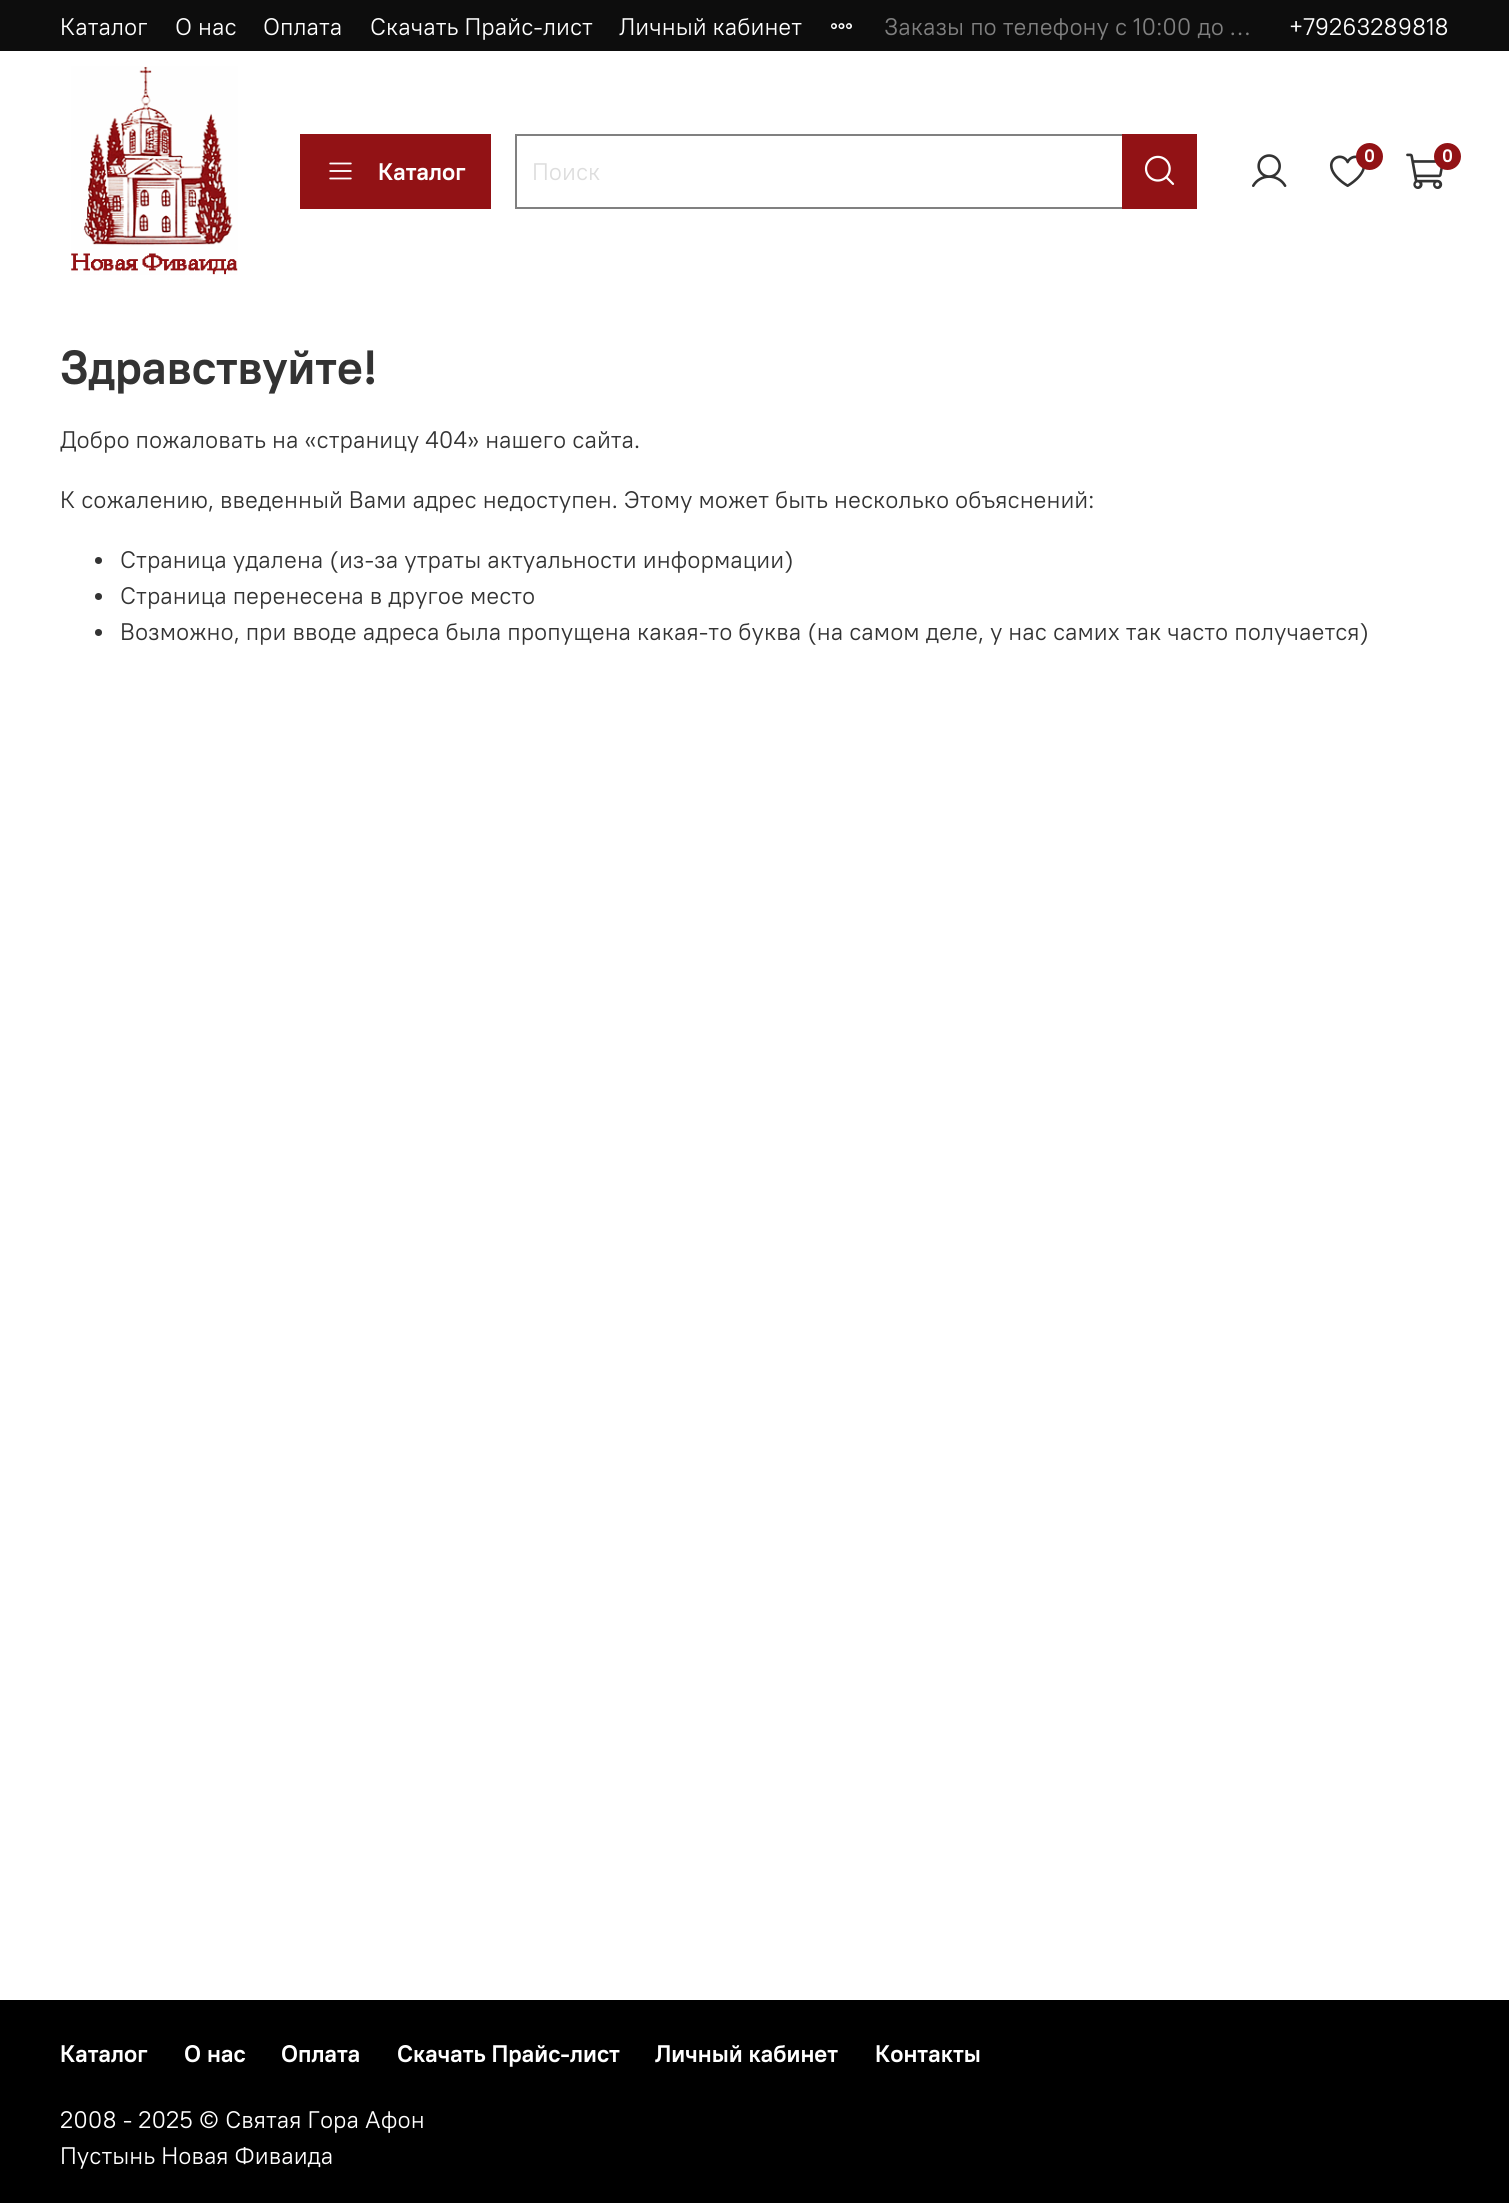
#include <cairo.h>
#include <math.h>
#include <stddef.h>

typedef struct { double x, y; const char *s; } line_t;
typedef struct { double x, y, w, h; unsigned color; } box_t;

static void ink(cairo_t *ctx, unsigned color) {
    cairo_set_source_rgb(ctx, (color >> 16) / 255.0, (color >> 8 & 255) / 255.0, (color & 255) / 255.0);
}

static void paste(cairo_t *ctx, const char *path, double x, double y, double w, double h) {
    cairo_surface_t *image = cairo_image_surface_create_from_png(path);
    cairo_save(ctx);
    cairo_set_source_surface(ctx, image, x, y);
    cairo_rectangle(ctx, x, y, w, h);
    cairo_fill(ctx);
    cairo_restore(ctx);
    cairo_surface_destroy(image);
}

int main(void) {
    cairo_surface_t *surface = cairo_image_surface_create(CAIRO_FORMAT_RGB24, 1509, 2203);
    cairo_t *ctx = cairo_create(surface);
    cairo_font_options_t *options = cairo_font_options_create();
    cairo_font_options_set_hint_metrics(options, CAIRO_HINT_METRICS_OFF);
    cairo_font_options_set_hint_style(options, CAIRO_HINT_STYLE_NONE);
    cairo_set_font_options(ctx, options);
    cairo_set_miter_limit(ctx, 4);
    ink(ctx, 0xFFFFFF);
    cairo_paint(ctx);
    ink(ctx, 0x0D0D0D);
    cairo_rectangle(ctx, 0, 0, 1509, 51);
    cairo_fill(ctx);
    cairo_select_font_face(ctx, "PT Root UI", CAIRO_FONT_SLANT_NORMAL, CAIRO_FONT_WEIGHT_NORMAL);
    cairo_set_font_size(ctx, 24);
    ink(ctx, 0xFFFFFF);
    {
        static const line_t items[] = {
            {60, 35, "Каталог"},
            {175, 35, "О нас"},
            {263, 35, "Оплата"},
            {370, 35, "Скачать Прайс-лист"},
            {619, 35, "Личный кабинет"},
        };
        for (size_t i = 0; i < sizeof items / sizeof *items; i++) {
            cairo_move_to(ctx, items[i].x, items[i].y);
            cairo_show_text(ctx, items[i].s);
        }
    }
    paste(ctx, "media/1.png", 831, 23, 21, 7);
    ink(ctx, 0x808080);
    cairo_move_to(ctx, 884, 35);
    cairo_show_text(ctx, "Заказы по телефону с 10:00 до …");
    ink(ctx, 0xFFFFFF);
    cairo_move_to(ctx, 1289, 35);
    cairo_show_text(ctx, "+79263289818");
    paste(ctx, "media/2.png", 71, 66, 167, 209);
    paste(ctx, "media/3.png", 1252, 154, 35, 33);
    paste(ctx, "media/4.png", 1329, 155, 36, 32);
    ink(ctx, 0x921215);
    cairo_arc(ctx, 1369.5, 156.5, 13.5, 0, 2 * M_PI);
    cairo_fill(ctx);
    cairo_select_font_face(ctx, "PT Root UI", CAIRO_FONT_SLANT_NORMAL, CAIRO_FONT_WEIGHT_BOLD);
    cairo_set_font_size(ctx, 18);
    ink(ctx, 0xFFFFFF);
    cairo_move_to(ctx, 1364, 162);
    cairo_show_text(ctx, "0");
    paste(ctx, "media/5.png", 1406, 153, 37, 36);
    ink(ctx, 0x921215);
    cairo_arc(ctx, 1447.5, 156.5, 13.5, 0, 2 * M_PI);
    cairo_fill(ctx);
    ink(ctx, 0xFFFFFF);
    cairo_move_to(ctx, 1442, 162);
    cairo_show_text(ctx, "0");
    ink(ctx, 0x921215);
    cairo_rectangle(ctx, 300, 134, 191, 75);
    cairo_fill(ctx);
    paste(ctx, "media/6.png", 329, 162, 23, 18);
    cairo_set_font_size(ctx, 24);
    ink(ctx, 0xFFFFFF);
    cairo_move_to(ctx, 378, 180);
    cairo_show_text(ctx, "Каталог");
    {
        static const box_t items[] = {
            {515, 134, 607, 2, 0x808080},
            {515, 207, 607, 2, 0x808080},
            {515, 134, 2, 75, 0x808080},
        };
        for (size_t i = 0; i < sizeof items / sizeof *items; i++) {
            ink(ctx, items[i].color);
            cairo_rectangle(ctx, items[i].x, items[i].y, items[i].w, items[i].h);
            cairo_fill(ctx);
        }
    }
    cairo_select_font_face(ctx, "PT Root UI", CAIRO_FONT_SLANT_NORMAL, CAIRO_FONT_WEIGHT_NORMAL);
    ink(ctx, 0xDDDDDD);
    cairo_move_to(ctx, 532, 180);
    cairo_show_text(ctx, "Поиск");
    ink(ctx, 0x921215);
    cairo_rectangle(ctx, 1122, 134, 75, 75);
    cairo_fill(ctx);
    paste(ctx, "media/7.png", 1144, 155, 31, 30);
    cairo_select_font_face(ctx, "PT Root UI", CAIRO_FONT_SLANT_NORMAL, CAIRO_FONT_WEIGHT_BOLD);
    cairo_set_font_size(ctx, 48);
    ink(ctx, 0x333333);
    cairo_move_to(ctx, 60, 384);
    cairo_show_text(ctx, "Здравствуйте!");
    cairo_select_font_face(ctx, "PT Root UI", CAIRO_FONT_SLANT_NORMAL, CAIRO_FONT_WEIGHT_NORMAL);
    cairo_set_font_size(ctx, 24);
    cairo_move_to(ctx, 60, 448);
    cairo_show_text(ctx, "Добро пожаловать на «страницу 404» нашего сайта.");
    cairo_move_to(ctx, 60, 508);
    cairo_show_text(ctx, "К сожалению, введенный Вами адрес недоступен. Этому может быть несколько объяснений:");
    cairo_new_path(ctx);
    cairo_arc(ctx, 98.5, 560.5, 3.5, 0, 2 * M_PI);
    cairo_fill(ctx);
    cairo_move_to(ctx, 120, 568);
    cairo_show_text(ctx, "Страница удалена (из-за утраты актуальности информации)");
    cairo_new_path(ctx);
    cairo_arc(ctx, 98.5, 596.5, 3.5, 0, 2 * M_PI);
    cairo_fill(ctx);
    cairo_move_to(ctx, 120, 604);
    cairo_show_text(ctx, "Страница перенесена в другое место");
    cairo_new_path(ctx);
    cairo_arc(ctx, 98.5, 632.5, 3.5, 0, 2 * M_PI);
    cairo_fill(ctx);
    cairo_move_to(ctx, 120, 640);
    cairo_show_text(ctx, "Возможно, при вводе адреса была пропущена какая-то буква (на самом деле, у нас самих так часто получается)");
    ink(ctx, 0x000000);
    cairo_rectangle(ctx, 0, 2000, 1509, 203);
    cairo_fill(ctx);
    cairo_select_font_face(ctx, "PT Root UI", CAIRO_FONT_SLANT_NORMAL, CAIRO_FONT_WEIGHT_BOLD);
    ink(ctx, 0xFFFFFF);
    {
        static const line_t items[] = {
            {60, 2062, "Каталог"},
            {184, 2062, "О нас"},
            {281, 2062, "Оплата"},
            {397, 2062, "Скачать Прайс-лист"},
            {655, 2062, "Личный кабинет"},
            {875, 2062, "Контакты"},
        };
        for (size_t i = 0; i < sizeof items / sizeof *items; i++) {
            cairo_move_to(ctx, items[i].x, items[i].y);
            cairo_show_text(ctx, items[i].s);
        }
    }
    cairo_select_font_face(ctx, "PT Root UI", CAIRO_FONT_SLANT_NORMAL, CAIRO_FONT_WEIGHT_NORMAL);
    cairo_move_to(ctx, 60, 2128);
    cairo_show_text(ctx, "2008 - 2025 © Святая Гора Афон");
    cairo_move_to(ctx, 60, 2164);
    cairo_show_text(ctx, "Пустынь Новая Фиваида");
    cairo_surface_write_to_png(surface, "image.png");
    cairo_font_options_destroy(options);
    cairo_destroy(ctx);
    cairo_surface_destroy(surface);
    return 0;
}
